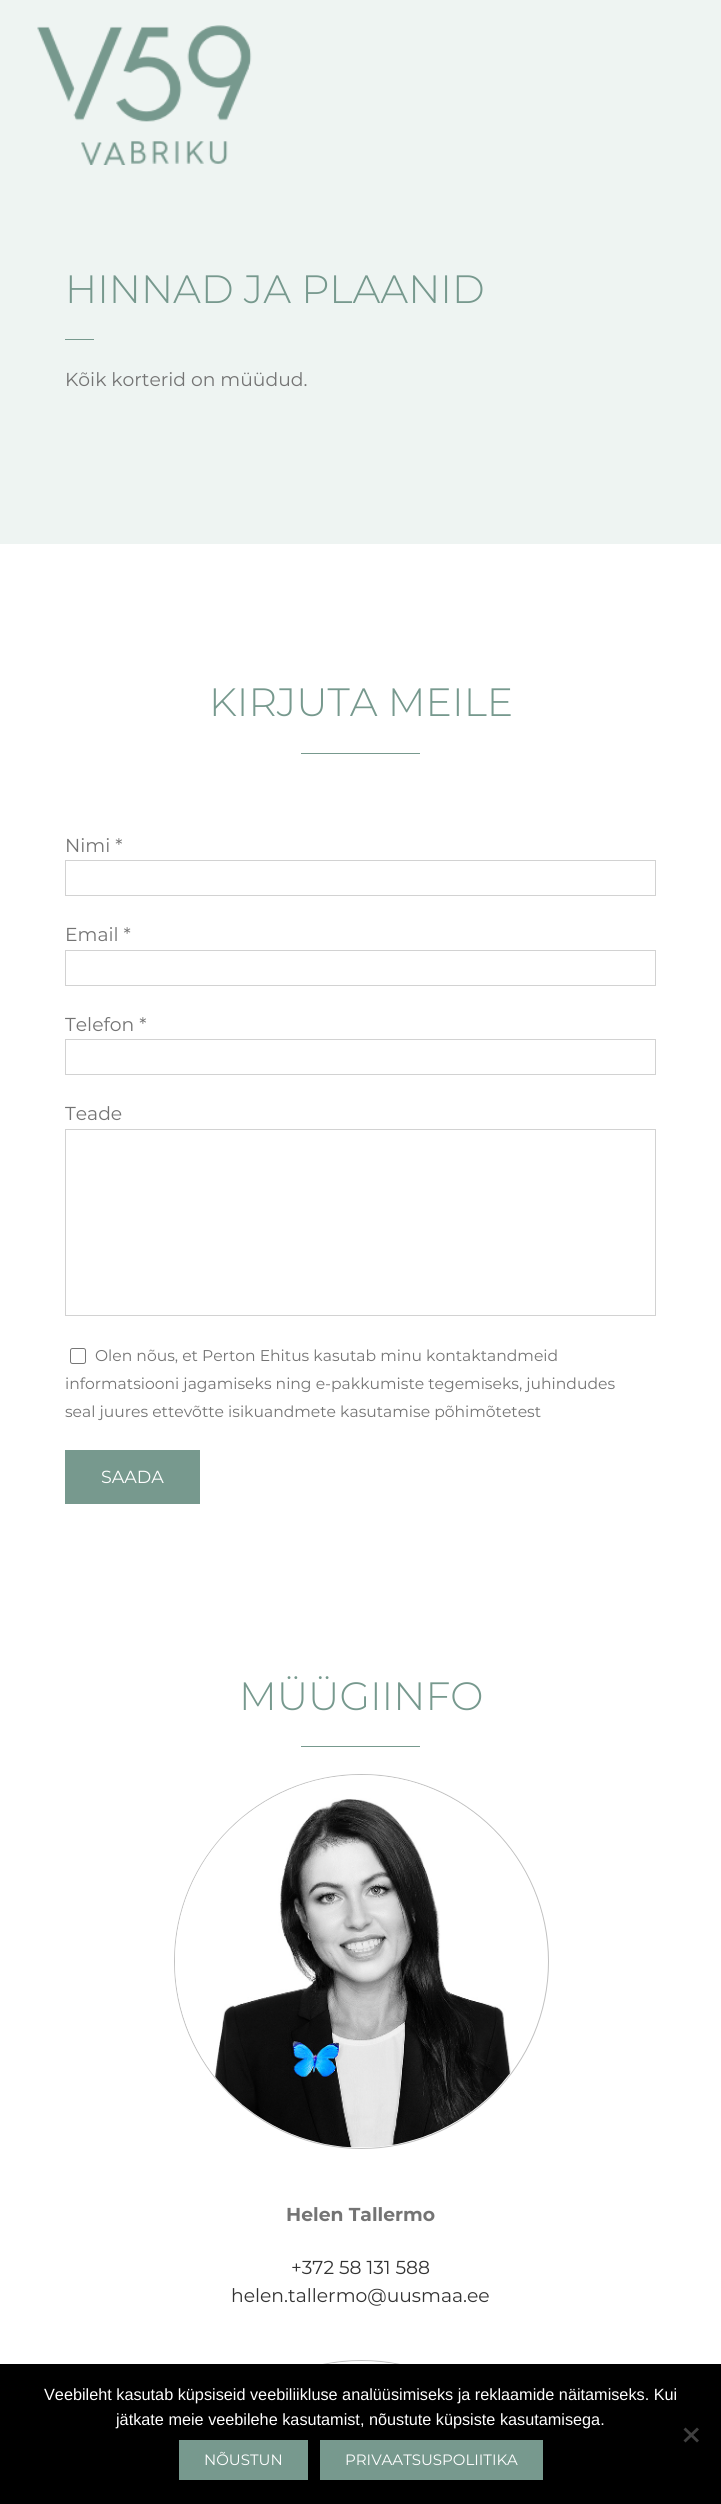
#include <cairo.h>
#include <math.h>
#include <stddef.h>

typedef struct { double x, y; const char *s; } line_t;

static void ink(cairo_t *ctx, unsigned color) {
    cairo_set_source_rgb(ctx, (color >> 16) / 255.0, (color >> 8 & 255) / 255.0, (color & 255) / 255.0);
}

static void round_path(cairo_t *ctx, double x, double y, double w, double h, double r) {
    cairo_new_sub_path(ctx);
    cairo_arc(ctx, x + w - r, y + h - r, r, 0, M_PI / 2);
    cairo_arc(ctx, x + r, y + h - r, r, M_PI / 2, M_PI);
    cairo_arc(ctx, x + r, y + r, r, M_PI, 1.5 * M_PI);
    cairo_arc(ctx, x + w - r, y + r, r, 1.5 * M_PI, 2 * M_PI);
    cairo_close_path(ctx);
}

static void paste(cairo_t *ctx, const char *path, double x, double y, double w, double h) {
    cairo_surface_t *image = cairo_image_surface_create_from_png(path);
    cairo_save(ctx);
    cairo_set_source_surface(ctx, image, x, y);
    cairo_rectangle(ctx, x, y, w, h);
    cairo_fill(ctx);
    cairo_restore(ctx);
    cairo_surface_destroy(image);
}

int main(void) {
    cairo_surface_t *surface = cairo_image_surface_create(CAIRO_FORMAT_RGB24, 721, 2504);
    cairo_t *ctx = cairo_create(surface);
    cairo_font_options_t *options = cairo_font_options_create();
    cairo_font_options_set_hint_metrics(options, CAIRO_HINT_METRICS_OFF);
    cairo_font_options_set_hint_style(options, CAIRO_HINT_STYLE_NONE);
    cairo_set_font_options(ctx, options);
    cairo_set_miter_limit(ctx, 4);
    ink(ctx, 0xFFFFFF);
    cairo_paint(ctx);
    ink(ctx, 0xEEF4F2);
    cairo_rectangle(ctx, 0, 0, 721, 544);
    cairo_fill(ctx);
    paste(ctx, "media/1.png", 37, 25, 215, 140);
    cairo_select_font_face(ctx, "Montserrat Light", CAIRO_FONT_SLANT_NORMAL, CAIRO_FONT_WEIGHT_NORMAL);
    cairo_set_font_size(ctx, 39.5);
    ink(ctx, 0x77998E);
    cairo_move_to(ctx, 65, 303);
    cairo_show_text(ctx, "HINNAD JA PLAANID");
    cairo_rectangle(ctx, 65, 339, 29, 1);
    cairo_fill(ctx);
    cairo_select_font_face(ctx, "Montserrat", CAIRO_FONT_SLANT_NORMAL, CAIRO_FONT_WEIGHT_NORMAL);
    cairo_set_font_size(ctx, 18.75);
    ink(ctx, 0x747474);
    cairo_move_to(ctx, 65, 386);
    cairo_show_text(ctx, "Kõik korterid on müüdud.");
    cairo_select_font_face(ctx, "Montserrat Light", CAIRO_FONT_SLANT_NORMAL, CAIRO_FONT_WEIGHT_NORMAL);
    cairo_set_font_size(ctx, 39.5);
    ink(ctx, 0x77998E);
    cairo_move_to(ctx, 209, 716);
    cairo_show_text(ctx, "KIRJUTA MEILE");
    cairo_rectangle(ctx, 301, 753, 119, 1);
    cairo_fill(ctx);
    cairo_select_font_face(ctx, "Montserrat", CAIRO_FONT_SLANT_NORMAL, CAIRO_FONT_WEIGHT_NORMAL);
    cairo_set_font_size(ctx, 18.75);
    ink(ctx, 0x747474);
    cairo_move_to(ctx, 65, 852);
    cairo_show_text(ctx, "Nimi *");
    cairo_rectangle(ctx, 65.5, 860.5, 590, 35);
    ink(ctx, 0xD2D2D2);
    cairo_set_line_width(ctx, 1);
    cairo_stroke(ctx);
    ink(ctx, 0x747474);
    cairo_move_to(ctx, 65, 941);
    cairo_show_text(ctx, "Email *");
    cairo_rectangle(ctx, 65.5, 950.5, 590, 35);
    ink(ctx, 0xD2D2D2);
    cairo_stroke(ctx);
    ink(ctx, 0x747474);
    cairo_move_to(ctx, 65, 1031);
    cairo_show_text(ctx, "Telefon *");
    cairo_rectangle(ctx, 65.5, 1039.5, 590, 35);
    ink(ctx, 0xD2D2D2);
    cairo_stroke(ctx);
    ink(ctx, 0x747474);
    cairo_move_to(ctx, 65, 1120);
    cairo_show_text(ctx, "Teade");
    cairo_rectangle(ctx, 65.5, 1129.5, 590, 186);
    ink(ctx, 0xD2D2D2);
    cairo_stroke(ctx);
    round_path(ctx, 70.5, 1348.5, 15, 15, 2);
    ink(ctx, 0x767676);
    cairo_stroke(ctx);
    cairo_set_font_size(ctx, 15.6);
    ink(ctx, 0x747474);
    {
        static const line_t items[] = {
            {95, 1361, "Olen nõus, et Perton Ehitus kasutab minu kontaktandmeid"},
            {65, 1389, "informatsiooni jagamiseks ning e-pakkumiste tegemiseks, juhindudes"},
            {65, 1417, "seal juures ettevõtte isikuandmete kasutamise põhimõtetest"},
        };
        for (size_t i = 0; i < sizeof items / sizeof *items; i++) {
            cairo_move_to(ctx, items[i].x, items[i].y);
            cairo_show_text(ctx, items[i].s);
        }
    }
    ink(ctx, 0x77998E);
    cairo_rectangle(ctx, 65, 1450, 135, 54);
    cairo_fill(ctx);
    cairo_set_font_size(ctx, 17.5);
    ink(ctx, 0xFFFFFF);
    cairo_move_to(ctx, 101, 1483);
    cairo_show_text(ctx, "SAADA");
    cairo_select_font_face(ctx, "Montserrat Light", CAIRO_FONT_SLANT_NORMAL, CAIRO_FONT_WEIGHT_NORMAL);
    cairo_set_font_size(ctx, 39.5);
    ink(ctx, 0x77998E);
    cairo_move_to(ctx, 239, 1710);
    cairo_show_text(ctx, "MÜÜGIINFO");
    cairo_rectangle(ctx, 301, 1746, 119, 1);
    cairo_fill(ctx);
    cairo_arc(ctx, 361.5, 1961.5, 187, 0, 2 * M_PI);
    ink(ctx, 0xC1C1C1);
    cairo_stroke(ctx);
    paste(ctx, "media/2.png", 175, 1775, 368, 373);
    cairo_select_font_face(ctx, "Montserrat", CAIRO_FONT_SLANT_NORMAL, CAIRO_FONT_WEIGHT_BOLD);
    cairo_set_font_size(ctx, 18.75);
    ink(ctx, 0x747474);
    cairo_move_to(ctx, 286, 2221);
    cairo_show_text(ctx, "Helen Tallermo");
    cairo_select_font_face(ctx, "Montserrat", CAIRO_FONT_SLANT_NORMAL, CAIRO_FONT_WEIGHT_NORMAL);
    ink(ctx, 0x333333);
    cairo_move_to(ctx, 291, 2274);
    cairo_show_text(ctx, "+372 58 131 588");
    cairo_move_to(ctx, 231, 2302);
    cairo_show_text(ctx, "helen.tallermo@uusmaa.ee");
    round_path(ctx, 174.5, 2360.5, 374, 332, 187);
    ink(ctx, 0xC1C1C1);
    cairo_stroke(ctx);
    paste(ctx, "media/3.png", 327, 2361, 68, 3);
    ink(ctx, 0x000000);
    cairo_rectangle(ctx, 0, 2364, 721, 140);
    cairo_fill(ctx);
    cairo_select_font_face(ctx, "Liberation Sans", CAIRO_FONT_SLANT_NORMAL, CAIRO_FONT_WEIGHT_NORMAL);
    cairo_set_font_size(ctx, 16.25);
    ink(ctx, 0xFFFFFF);
    cairo_move_to(ctx, 44, 2400);
    cairo_show_text(ctx, "Veebileht kasutab küpsiseid veebiliikluse analüüsimiseks ja reklaamide näitamiseks. Kui");
    cairo_move_to(ctx, 116, 2425);
    cairo_show_text(ctx, "jätkate meie veebilehe kasutamist, nõustute küpsiste kasutamisega.");
    ink(ctx, 0x404040);
    cairo_new_path(ctx);
    cairo_move_to(ctx, 697, 2427.5);
    cairo_line_to(ctx, 699, 2429.5);
    cairo_line_to(ctx, 685.5, 2442.5);
    cairo_line_to(ctx, 683.5, 2440.5);
    cairo_close_path(ctx);
    cairo_fill(ctx);
    cairo_new_path(ctx);
    cairo_move_to(ctx, 683.5, 2429.5);
    cairo_line_to(ctx, 685.5, 2427.5);
    cairo_line_to(ctx, 699, 2440.5);
    cairo_line_to(ctx, 697, 2442.5);
    cairo_close_path(ctx);
    cairo_fill(ctx);
    ink(ctx, 0x77998E);
    cairo_rectangle(ctx, 179, 2440, 129, 40);
    cairo_fill(ctx);
    cairo_select_font_face(ctx, "Montserrat", CAIRO_FONT_SLANT_NORMAL, CAIRO_FONT_WEIGHT_NORMAL);
    cairo_set_font_size(ctx, 15);
    ink(ctx, 0xFFFFFF);
    cairo_move_to(ctx, 204, 2465);
    cairo_show_text(ctx, "NÕUSTUN");
    ink(ctx, 0x77998E);
    cairo_rectangle(ctx, 320, 2440, 223, 40);
    cairo_fill(ctx);
    ink(ctx, 0xFFFFFF);
    cairo_move_to(ctx, 345, 2465);
    cairo_show_text(ctx, "PRIVAATSUSPOLIITIKA");
    cairo_surface_write_to_png(surface, "image.png");
    cairo_font_options_destroy(options);
    cairo_destroy(ctx);
    cairo_surface_destroy(surface);
    return 0;
}
